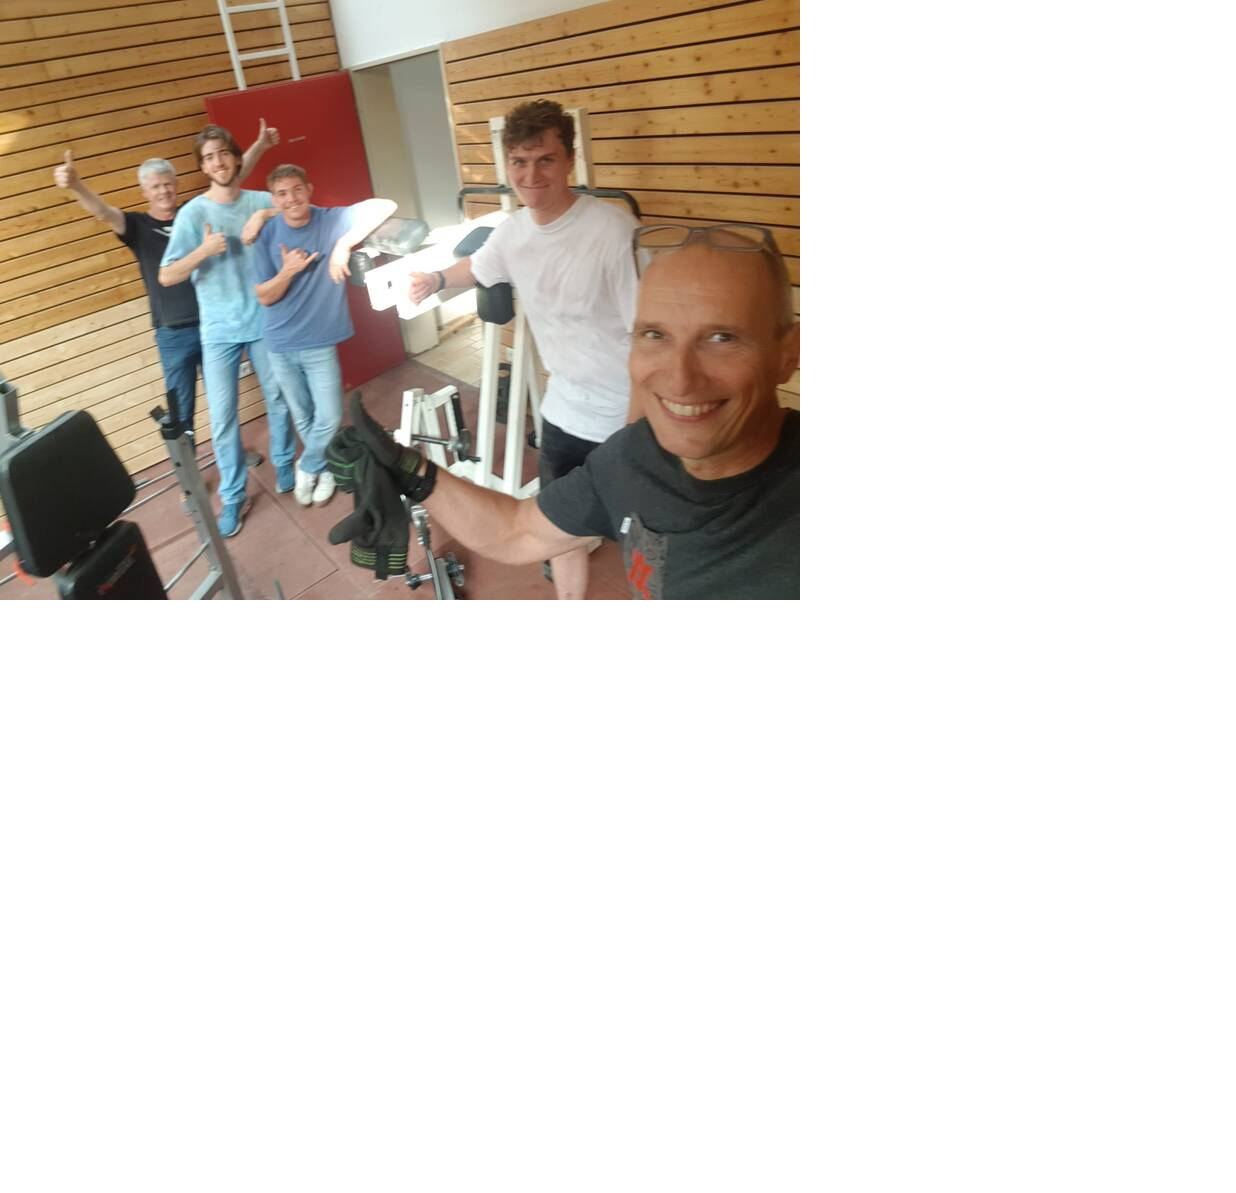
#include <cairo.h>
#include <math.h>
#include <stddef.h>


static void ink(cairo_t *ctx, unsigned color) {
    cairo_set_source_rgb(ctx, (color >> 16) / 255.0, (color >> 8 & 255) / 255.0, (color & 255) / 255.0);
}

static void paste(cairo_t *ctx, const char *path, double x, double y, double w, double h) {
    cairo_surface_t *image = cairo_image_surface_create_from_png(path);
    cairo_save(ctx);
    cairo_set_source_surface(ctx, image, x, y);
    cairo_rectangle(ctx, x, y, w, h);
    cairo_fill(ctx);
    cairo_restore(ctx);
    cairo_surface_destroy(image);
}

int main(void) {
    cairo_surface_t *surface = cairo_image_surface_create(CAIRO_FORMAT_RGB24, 1236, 1193);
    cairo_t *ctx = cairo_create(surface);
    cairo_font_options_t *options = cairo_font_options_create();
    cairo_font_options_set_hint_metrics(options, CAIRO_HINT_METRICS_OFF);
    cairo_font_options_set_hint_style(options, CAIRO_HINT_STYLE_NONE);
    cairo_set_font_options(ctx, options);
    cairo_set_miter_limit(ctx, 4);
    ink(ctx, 0xFFFFFF);
    cairo_paint(ctx);
    paste(ctx, "media/1.png", 0, 0, 800, 600);
    cairo_surface_write_to_png(surface, "image.png");
    cairo_font_options_destroy(options);
    cairo_destroy(ctx);
    cairo_surface_destroy(surface);
    return 0;
}
